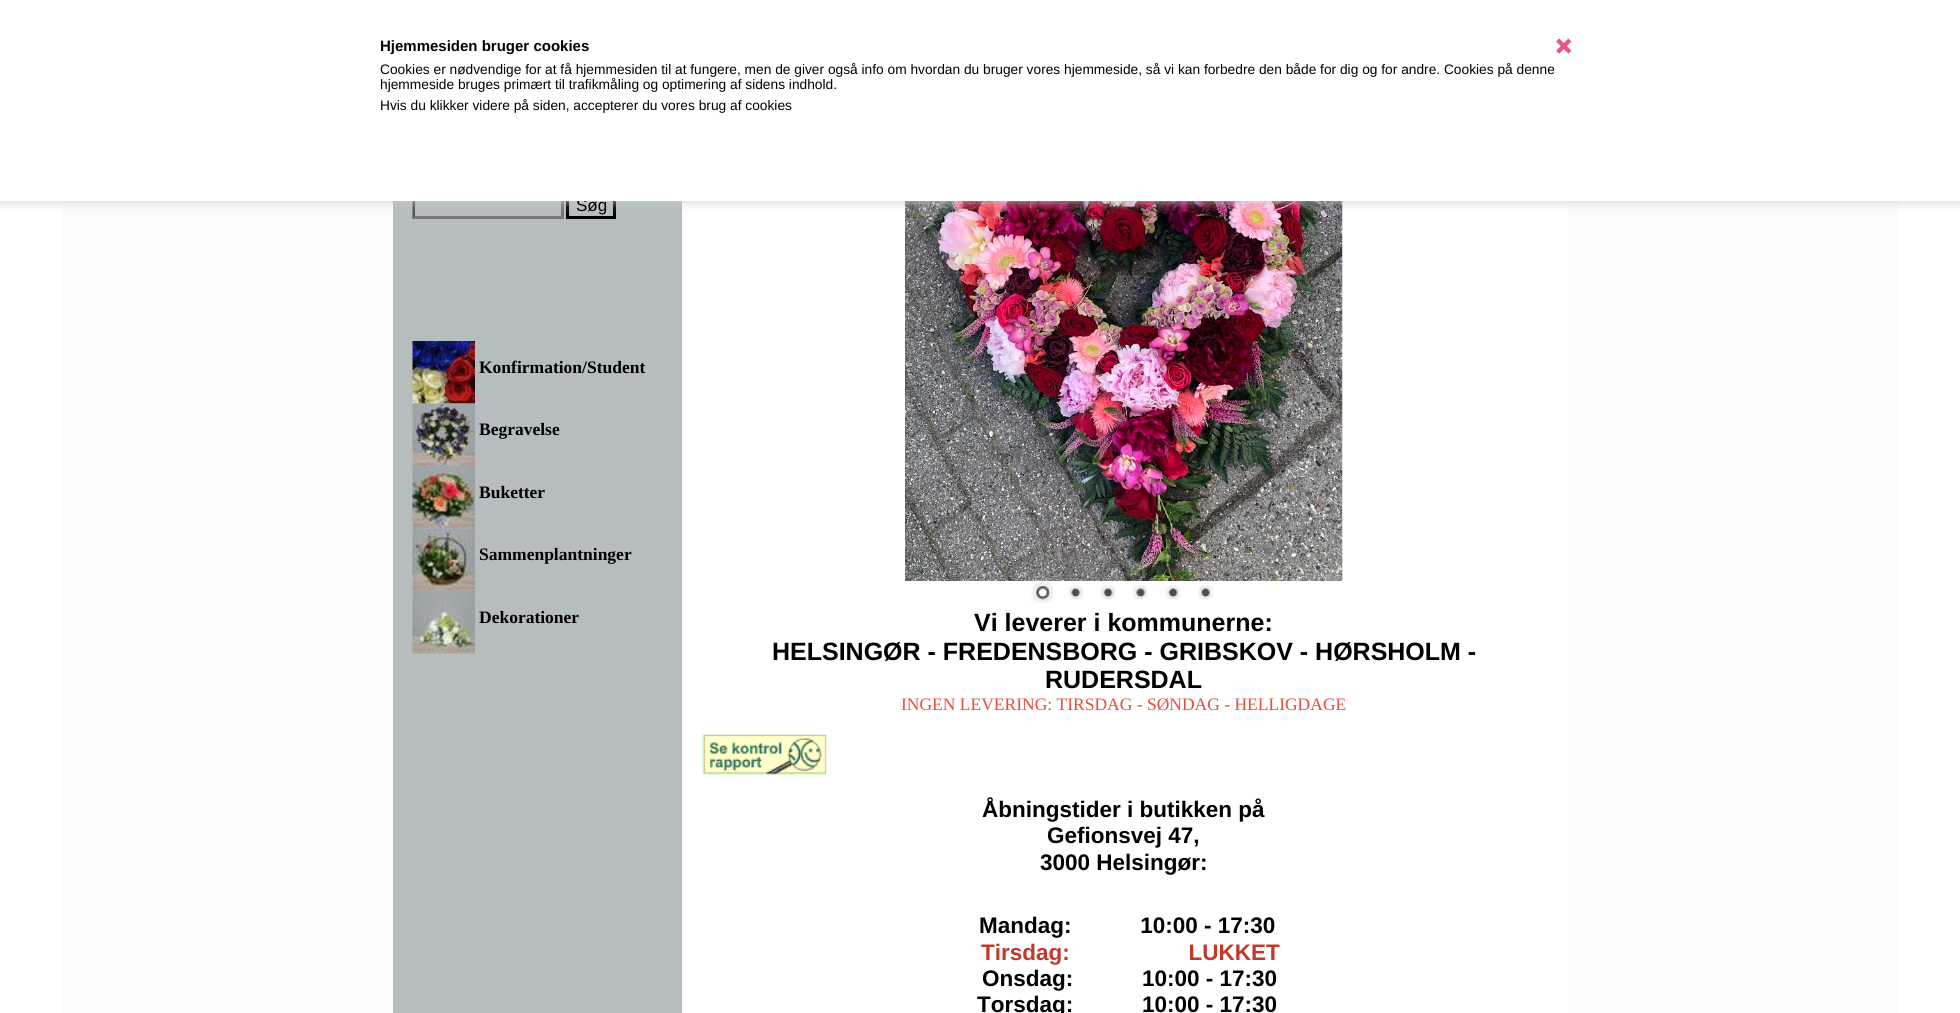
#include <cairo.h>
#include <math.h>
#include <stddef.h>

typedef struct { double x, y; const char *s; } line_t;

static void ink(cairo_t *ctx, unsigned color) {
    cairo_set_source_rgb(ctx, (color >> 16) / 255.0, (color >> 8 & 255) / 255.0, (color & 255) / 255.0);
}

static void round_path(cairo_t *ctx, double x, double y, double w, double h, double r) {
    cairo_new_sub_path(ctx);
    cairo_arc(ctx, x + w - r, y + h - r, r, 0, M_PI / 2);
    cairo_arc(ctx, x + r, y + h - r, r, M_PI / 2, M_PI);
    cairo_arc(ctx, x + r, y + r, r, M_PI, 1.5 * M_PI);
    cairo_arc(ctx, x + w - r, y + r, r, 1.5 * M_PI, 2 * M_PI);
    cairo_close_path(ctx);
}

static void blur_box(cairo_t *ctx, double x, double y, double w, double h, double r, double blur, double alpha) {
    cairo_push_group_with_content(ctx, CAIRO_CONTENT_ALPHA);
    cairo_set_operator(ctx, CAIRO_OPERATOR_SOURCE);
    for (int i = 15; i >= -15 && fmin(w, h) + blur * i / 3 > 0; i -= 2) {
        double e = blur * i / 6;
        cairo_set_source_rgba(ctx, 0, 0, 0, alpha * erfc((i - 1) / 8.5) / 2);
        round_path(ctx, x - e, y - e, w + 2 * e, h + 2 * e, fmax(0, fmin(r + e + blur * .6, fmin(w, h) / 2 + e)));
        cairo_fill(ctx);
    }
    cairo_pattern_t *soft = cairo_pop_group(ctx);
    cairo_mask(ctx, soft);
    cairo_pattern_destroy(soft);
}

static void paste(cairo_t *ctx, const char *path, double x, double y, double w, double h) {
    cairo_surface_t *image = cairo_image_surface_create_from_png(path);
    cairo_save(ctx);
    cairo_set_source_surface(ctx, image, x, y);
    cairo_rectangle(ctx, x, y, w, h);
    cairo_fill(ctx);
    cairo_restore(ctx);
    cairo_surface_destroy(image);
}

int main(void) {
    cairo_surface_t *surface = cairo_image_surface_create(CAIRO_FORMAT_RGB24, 1960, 1013);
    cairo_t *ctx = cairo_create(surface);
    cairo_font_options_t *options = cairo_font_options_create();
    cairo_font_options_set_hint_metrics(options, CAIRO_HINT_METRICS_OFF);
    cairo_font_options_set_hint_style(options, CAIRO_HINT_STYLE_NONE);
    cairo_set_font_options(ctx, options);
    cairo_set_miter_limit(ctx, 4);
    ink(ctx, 0xFFFFFF);
    cairo_paint(ctx);
    ink(ctx, 0xFBFBFB);
    cairo_rectangle(ctx, 63, 201, 330, 812);
    cairo_fill(ctx);
    ink(ctx, 0xB5BDBF);
    cairo_rectangle(ctx, 393, 201, 289, 812);
    cairo_fill(ctx);
    ink(ctx, 0x767676);
    cairo_new_path(ctx);
    cairo_move_to(ctx, 564, 192.5);
    cairo_line_to(ctx, 564, 219);
    cairo_line_to(ctx, 561, 216);
    cairo_line_to(ctx, 561, 195);
    cairo_close_path(ctx);
    cairo_fill(ctx);
    cairo_new_path(ctx);
    cairo_move_to(ctx, 564, 219);
    cairo_line_to(ctx, 412, 219);
    cairo_line_to(ctx, 415, 216);
    cairo_line_to(ctx, 561, 216);
    cairo_close_path(ctx);
    cairo_fill(ctx);
    ink(ctx, 0x4F4F4F);
    cairo_new_path(ctx);
    cairo_move_to(ctx, 412.5, 219);
    cairo_line_to(ctx, 412.5, 192.5);
    cairo_line_to(ctx, 415, 195);
    cairo_line_to(ctx, 415, 216);
    cairo_close_path(ctx);
    cairo_fill(ctx);
    cairo_rectangle(ctx, 567.5, 194.5, 47, 23);
    ink(ctx, 0x000000);
    cairo_set_line_width(ctx, 3);
    cairo_stroke(ctx);
    paste(ctx, "media/7.png", 905, 201, 438, 380);
    ink(ctx, 0xFBFBFB);
    cairo_rectangle(ctx, 1568, 201, 330, 812);
    cairo_fill(ctx);
    ink(ctx, 0xCCCCCC);
    blur_box(ctx, 0, 0, 1960, 201, 0, 6, 1);
    cairo_select_font_face(ctx, "Liberation Sans", CAIRO_FONT_SLANT_NORMAL, CAIRO_FONT_WEIGHT_NORMAL);
    cairo_set_font_size(ctx, 17);
    ink(ctx, 0x000000);
    cairo_move_to(ctx, 576, 211);
    cairo_show_text(ctx, "Søg");
    ink(ctx, 0xFFFFFF);
    cairo_rectangle(ctx, 0, 0, 1960, 201);
    cairo_fill(ctx);
    cairo_select_font_face(ctx, "Liberation Sans", CAIRO_FONT_SLANT_NORMAL, CAIRO_FONT_WEIGHT_BOLD);
    cairo_set_font_size(ctx, 15);
    ink(ctx, 0x000000);
    cairo_move_to(ctx, 380, 51);
    cairo_show_text(ctx, "Hjemmesiden bruger cookies");
    cairo_select_font_face(ctx, "Liberation Sans", CAIRO_FONT_SLANT_NORMAL, CAIRO_FONT_WEIGHT_NORMAL);
    cairo_set_font_size(ctx, 13.75);
    {
        static const line_t items[] = {
            {380, 74, "Cookies er nødvendige for at få hjemmesiden til at fungere, men de giver også info om hvordan du bruger vores hjemmeside, så vi kan forbedre den både for dig og for andre. Cookies på denne"},
            {380, 89, "hjemmeside bruges primært til trafikmåling og optimering af sidens indhold."},
            {380, 110, "Hvis du klikker videre på siden, accepterer du vores brug af cookies"},
        };
        for (size_t i = 0; i < sizeof items / sizeof *items; i++) {
            cairo_move_to(ctx, items[i].x, items[i].y);
            cairo_show_text(ctx, items[i].s);
        }
    }
    paste(ctx, "media/1.png", 1556, 38, 16, 16);
    paste(ctx, "media/2.png", 412, 341, 63, 63);
    cairo_select_font_face(ctx, "Liberation Serif", CAIRO_FONT_SLANT_NORMAL, CAIRO_FONT_WEIGHT_BOLD);
    cairo_set_font_size(ctx, 17.5);
    cairo_move_to(ctx, 479, 373);
    cairo_show_text(ctx, "Konfirmation/Student");
    paste(ctx, "media/3.png", 412, 403, 63, 63);
    cairo_move_to(ctx, 479, 435);
    cairo_show_text(ctx, "Begravelse");
    paste(ctx, "media/4.png", 412, 466, 63, 63);
    cairo_move_to(ctx, 479, 498);
    cairo_show_text(ctx, "Buketter");
    paste(ctx, "media/5.png", 412, 528, 63, 63);
    cairo_move_to(ctx, 479, 560);
    cairo_show_text(ctx, "Sammenplantninger");
    paste(ctx, "media/6.png", 412, 591, 63, 63);
    cairo_move_to(ctx, 479, 623);
    cairo_show_text(ctx, "Dekorationer");
    paste(ctx, "media/8.png", 1031, 581, 23, 22);
    paste(ctx, "media/9.png", 1068, 585, 15, 15);
    paste(ctx, "media/10.png", 1100, 585, 16, 15);
    paste(ctx, "media/9.png", 1133, 585, 15, 15);
    paste(ctx, "media/10.png", 1165, 585, 16, 15);
    paste(ctx, "media/9.png", 1198, 585, 15, 15);
    cairo_select_font_face(ctx, "Liberation Sans", CAIRO_FONT_SLANT_NORMAL, CAIRO_FONT_WEIGHT_BOLD);
    cairo_set_font_size(ctx, 25);
    {
        static const line_t items[] = {
            {974, 631, "Vi leverer i kommunerne:"},
            {772, 660, "HELSINGØR - FREDENSBORG - GRIBSKOV - HØRSHOLM -"},
            {1045, 688, "RUDERSDAL"},
        };
        for (size_t i = 0; i < sizeof items / sizeof *items; i++) {
            cairo_move_to(ctx, items[i].x, items[i].y);
            cairo_show_text(ctx, items[i].s);
        }
    }
    cairo_select_font_face(ctx, "Liberation Serif", CAIRO_FONT_SLANT_NORMAL, CAIRO_FONT_WEIGHT_NORMAL);
    cairo_set_font_size(ctx, 17.5);
    ink(ctx, 0xE74C3C);
    cairo_move_to(ctx, 901, 710);
    cairo_show_text(ctx, "INGEN LEVERING: TIRSDAG - SØNDAG - HELLIGDAGE");
    paste(ctx, "media/11.png", 702, 734, 125, 41);
    cairo_select_font_face(ctx, "Liberation Sans", CAIRO_FONT_SLANT_NORMAL, CAIRO_FONT_WEIGHT_BOLD);
    cairo_set_font_size(ctx, 22.5);
    ink(ctx, 0x000000);
    {
        static const line_t items[] = {
            {982, 817, "Åbningstider i butikken på"},
            {1047, 843, "Gefionsvej 47,"},
            {1040, 870, "3000 Helsingør:"},
            {979, 933, "Mandag:           10:00 - 17:30"},
        };
        for (size_t i = 0; i < sizeof items / sizeof *items; i++) {
            cairo_move_to(ctx, items[i].x, items[i].y);
            cairo_show_text(ctx, items[i].s);
        }
    }
    ink(ctx, 0xC0392B);
    cairo_move_to(ctx, 981, 960);
    cairo_show_text(ctx, "Tirsdag:                   LUKKET");
    ink(ctx, 0x000000);
    cairo_move_to(ctx, 982, 986);
    cairo_show_text(ctx, "Onsdag:           10:00 - 17:30");
    cairo_move_to(ctx, 977, 1012);
    cairo_show_text(ctx, "Torsdag:           10:00 - 17:30");
    cairo_surface_write_to_png(surface, "image.png");
    cairo_font_options_destroy(options);
    cairo_destroy(ctx);
    cairo_surface_destroy(surface);
    return 0;
}
